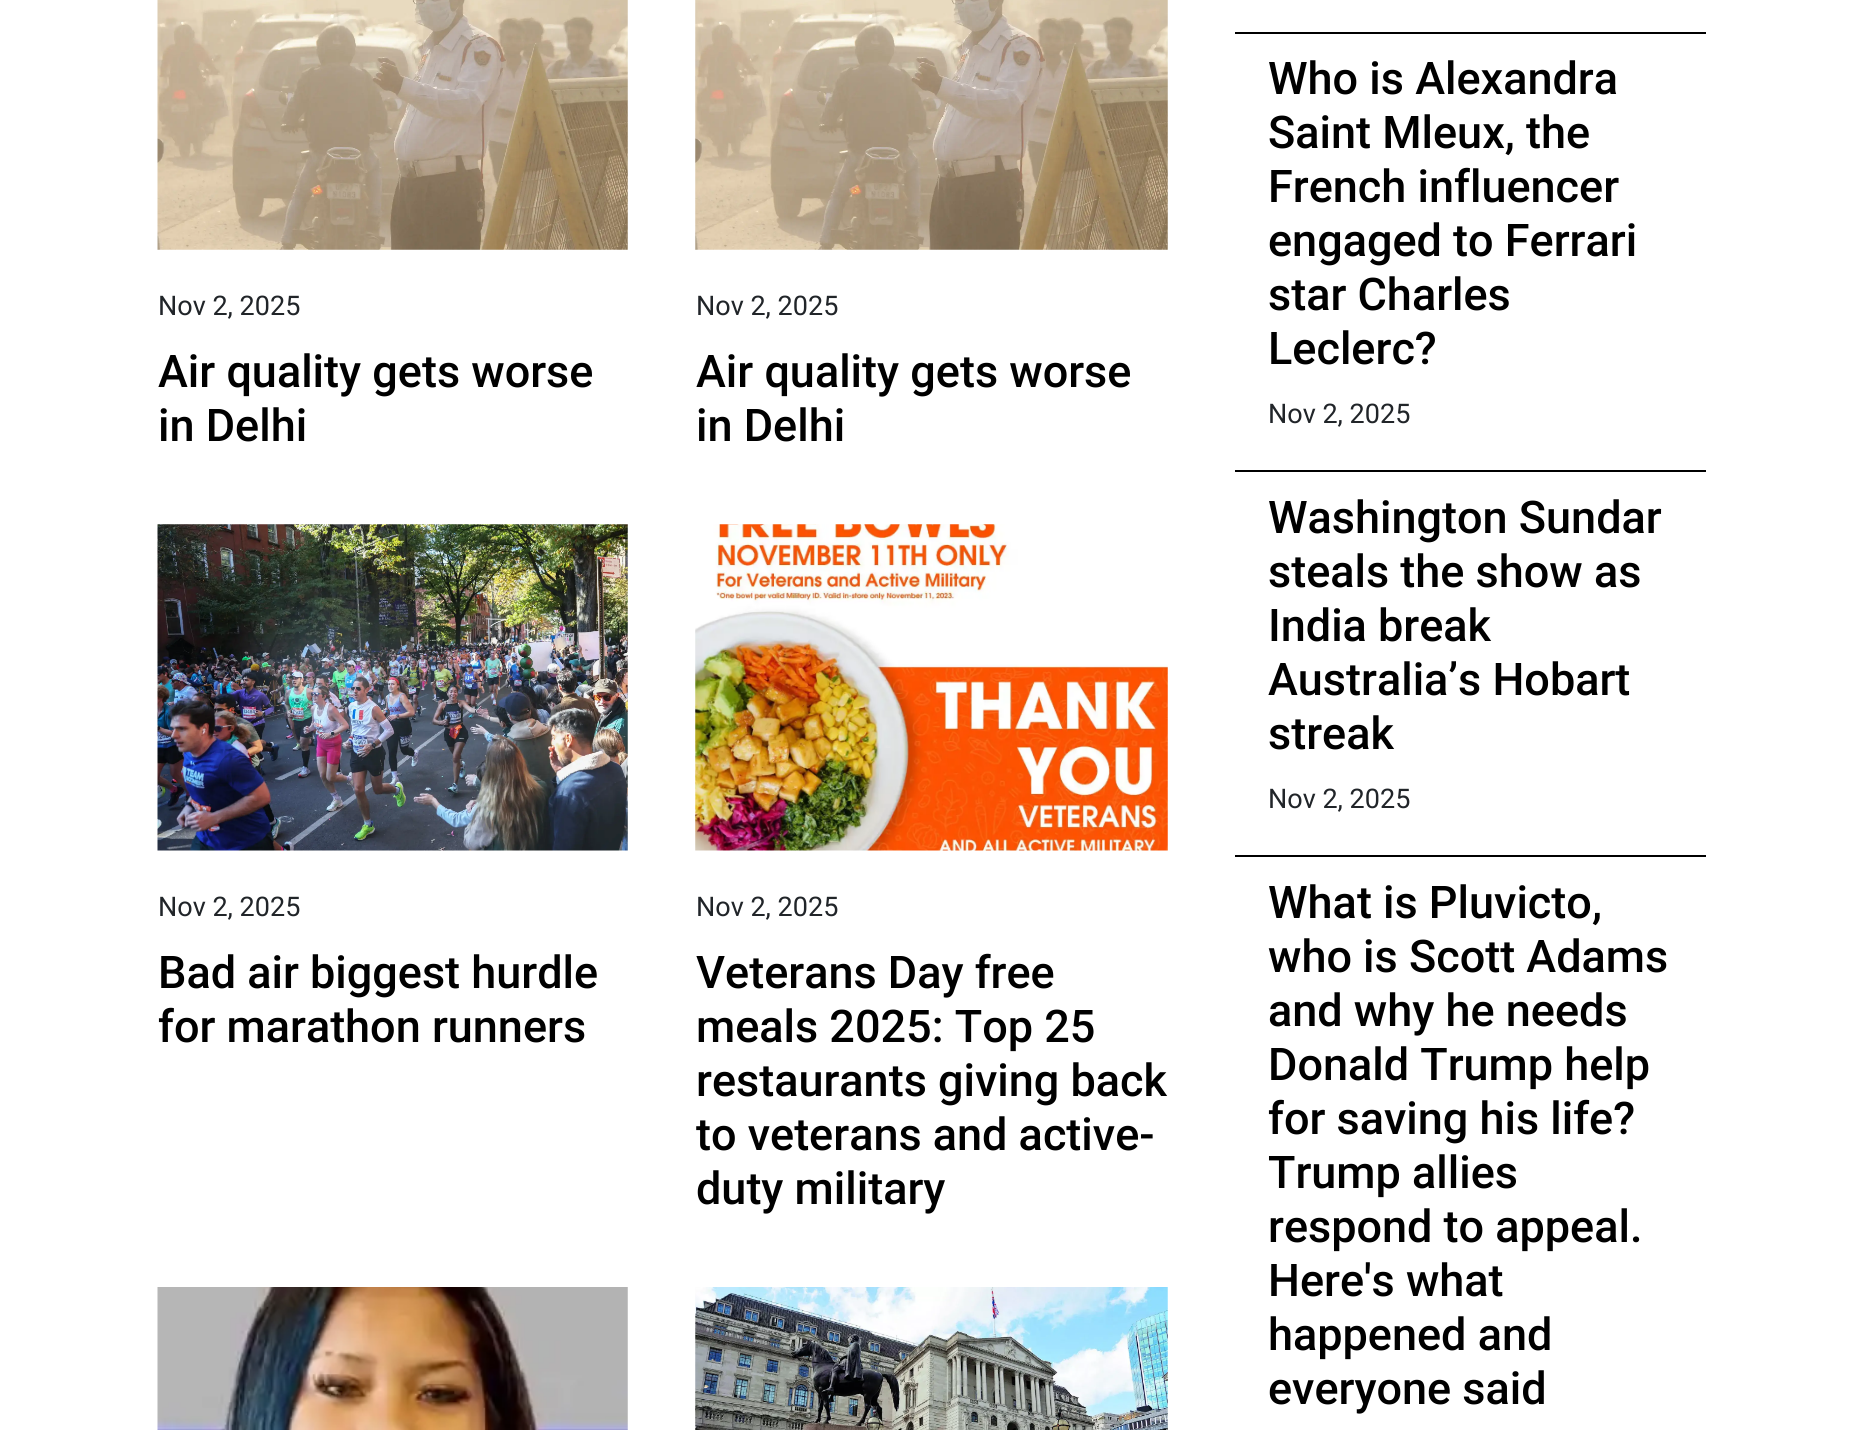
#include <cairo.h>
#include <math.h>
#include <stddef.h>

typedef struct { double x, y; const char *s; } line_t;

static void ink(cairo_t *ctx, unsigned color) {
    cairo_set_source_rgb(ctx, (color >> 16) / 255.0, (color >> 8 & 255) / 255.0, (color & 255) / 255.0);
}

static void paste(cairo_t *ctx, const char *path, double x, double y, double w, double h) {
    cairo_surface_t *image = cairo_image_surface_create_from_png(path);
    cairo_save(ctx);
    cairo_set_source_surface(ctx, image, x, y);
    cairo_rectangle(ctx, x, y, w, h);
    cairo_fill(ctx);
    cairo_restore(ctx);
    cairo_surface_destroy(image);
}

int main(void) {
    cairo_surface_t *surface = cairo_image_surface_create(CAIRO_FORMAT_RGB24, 1862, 1430);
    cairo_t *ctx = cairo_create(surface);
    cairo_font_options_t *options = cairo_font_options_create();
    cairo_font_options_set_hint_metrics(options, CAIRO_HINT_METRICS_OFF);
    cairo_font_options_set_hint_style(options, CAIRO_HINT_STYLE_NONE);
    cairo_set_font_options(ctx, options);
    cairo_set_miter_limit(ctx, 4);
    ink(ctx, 0xFFFFFF);
    cairo_paint(ctx);
    paste(ctx, "media/1.png", 157, 0, 471, 250);
    cairo_select_font_face(ctx, "Roboto", CAIRO_FONT_SLANT_NORMAL, CAIRO_FONT_WEIGHT_NORMAL);
    cairo_set_font_size(ctx, 27);
    ink(ctx, 0x212529);
    cairo_move_to(ctx, 158, 315);
    cairo_show_text(ctx, "Nov 2, 2025");
    cairo_select_font_face(ctx, "Roboto Medium", CAIRO_FONT_SLANT_NORMAL, CAIRO_FONT_WEIGHT_NORMAL);
    cairo_set_font_size(ctx, 45);
    ink(ctx, 0x000000);
    cairo_move_to(ctx, 158, 387);
    cairo_show_text(ctx, "Air quality gets worse");
    cairo_move_to(ctx, 158, 441);
    cairo_show_text(ctx, "in Delhi");
    paste(ctx, "media/2.png", 695, 0, 473, 250);
    cairo_select_font_face(ctx, "Roboto", CAIRO_FONT_SLANT_NORMAL, CAIRO_FONT_WEIGHT_NORMAL);
    cairo_set_font_size(ctx, 27);
    ink(ctx, 0x212529);
    cairo_move_to(ctx, 696, 315);
    cairo_show_text(ctx, "Nov 2, 2025");
    cairo_select_font_face(ctx, "Roboto Medium", CAIRO_FONT_SLANT_NORMAL, CAIRO_FONT_WEIGHT_NORMAL);
    cairo_set_font_size(ctx, 45);
    ink(ctx, 0x000000);
    cairo_move_to(ctx, 696, 387);
    cairo_show_text(ctx, "Air quality gets worse");
    cairo_move_to(ctx, 696, 441);
    cairo_show_text(ctx, "in Delhi");
    paste(ctx, "media/3.png", 157, 524, 471, 327);
    cairo_select_font_face(ctx, "Roboto", CAIRO_FONT_SLANT_NORMAL, CAIRO_FONT_WEIGHT_NORMAL);
    cairo_set_font_size(ctx, 27);
    ink(ctx, 0x212529);
    cairo_move_to(ctx, 158, 916);
    cairo_show_text(ctx, "Nov 2, 2025");
    cairo_select_font_face(ctx, "Roboto Medium", CAIRO_FONT_SLANT_NORMAL, CAIRO_FONT_WEIGHT_NORMAL);
    cairo_set_font_size(ctx, 45);
    ink(ctx, 0x000000);
    cairo_move_to(ctx, 158, 988);
    cairo_show_text(ctx, "Bad air biggest hurdle");
    cairo_move_to(ctx, 158, 1042);
    cairo_show_text(ctx, "for marathon runners");
    paste(ctx, "media/4.png", 695, 524, 473, 327);
    cairo_select_font_face(ctx, "Roboto", CAIRO_FONT_SLANT_NORMAL, CAIRO_FONT_WEIGHT_NORMAL);
    cairo_set_font_size(ctx, 27);
    ink(ctx, 0x212529);
    cairo_move_to(ctx, 696, 916);
    cairo_show_text(ctx, "Nov 2, 2025");
    cairo_select_font_face(ctx, "Roboto Medium", CAIRO_FONT_SLANT_NORMAL, CAIRO_FONT_WEIGHT_NORMAL);
    cairo_set_font_size(ctx, 45);
    ink(ctx, 0x000000);
    {
        static const line_t items[] = {
            {696, 988, "Veterans Day free"},
            {696, 1042, "meals 2025: Top 25"},
            {696, 1096, "restaurants giving back"},
            {696, 1150, "to veterans and active-"},
            {696, 1204, "duty military"},
        };
        for (size_t i = 0; i < sizeof items / sizeof *items; i++) {
            cairo_move_to(ctx, items[i].x, items[i].y);
            cairo_show_text(ctx, items[i].s);
        }
    }
    paste(ctx, "media/5.png", 157, 1287, 471, 143);
    paste(ctx, "media/6.png", 695, 1287, 473, 143);
    cairo_rectangle(ctx, 1235, 32, 471, 2);
    cairo_fill(ctx);
    {
        static const line_t items[] = {
            {1268, 94, "Who is Alexandra"},
            {1268, 148, "Saint Mleux, the"},
            {1268, 202, "French influencer"},
            {1268, 256, "engaged to Ferrari"},
            {1268, 310, "star Charles"},
            {1268, 364, "Leclerc?"},
        };
        for (size_t i = 0; i < sizeof items / sizeof *items; i++) {
            cairo_move_to(ctx, items[i].x, items[i].y);
            cairo_show_text(ctx, items[i].s);
        }
    }
    cairo_select_font_face(ctx, "Roboto", CAIRO_FONT_SLANT_NORMAL, CAIRO_FONT_WEIGHT_NORMAL);
    cairo_set_font_size(ctx, 27);
    ink(ctx, 0x212529);
    cairo_move_to(ctx, 1268, 423);
    cairo_show_text(ctx, "Nov 2, 2025");
    ink(ctx, 0x000000);
    cairo_rectangle(ctx, 1235, 470, 471, 2);
    cairo_fill(ctx);
    cairo_select_font_face(ctx, "Roboto Medium", CAIRO_FONT_SLANT_NORMAL, CAIRO_FONT_WEIGHT_NORMAL);
    cairo_set_font_size(ctx, 45);
    {
        static const line_t items[] = {
            {1268, 533, "Washington Sundar"},
            {1268, 587, "steals the show as"},
            {1268, 641, "India break"},
            {1268, 695, "Australia’s Hobart"},
            {1268, 749, "streak"},
        };
        for (size_t i = 0; i < sizeof items / sizeof *items; i++) {
            cairo_move_to(ctx, items[i].x, items[i].y);
            cairo_show_text(ctx, items[i].s);
        }
    }
    cairo_select_font_face(ctx, "Roboto", CAIRO_FONT_SLANT_NORMAL, CAIRO_FONT_WEIGHT_NORMAL);
    cairo_set_font_size(ctx, 27);
    ink(ctx, 0x212529);
    cairo_move_to(ctx, 1268, 808);
    cairo_show_text(ctx, "Nov 2, 2025");
    ink(ctx, 0x000000);
    cairo_rectangle(ctx, 1235, 855, 471, 2);
    cairo_fill(ctx);
    cairo_select_font_face(ctx, "Roboto Medium", CAIRO_FONT_SLANT_NORMAL, CAIRO_FONT_WEIGHT_NORMAL);
    cairo_set_font_size(ctx, 45);
    {
        static const line_t items[] = {
            {1268, 918, "What is Pluvicto,"},
            {1268, 972, "who is Scott Adams"},
            {1268, 1026, "and why he needs"},
            {1268, 1080, "Donald Trump help"},
            {1268, 1134, "for saving his life?"},
            {1268, 1188, "Trump allies"},
            {1268, 1242, "respond to appeal."},
            {1268, 1296, "Here's what"},
            {1268, 1350, "happened and"},
            {1268, 1404, "everyone said"},
        };
        for (size_t i = 0; i < sizeof items / sizeof *items; i++) {
            cairo_move_to(ctx, items[i].x, items[i].y);
            cairo_show_text(ctx, items[i].s);
        }
    }
    cairo_surface_write_to_png(surface, "image.png");
    cairo_font_options_destroy(options);
    cairo_destroy(ctx);
    cairo_surface_destroy(surface);
    return 0;
}
